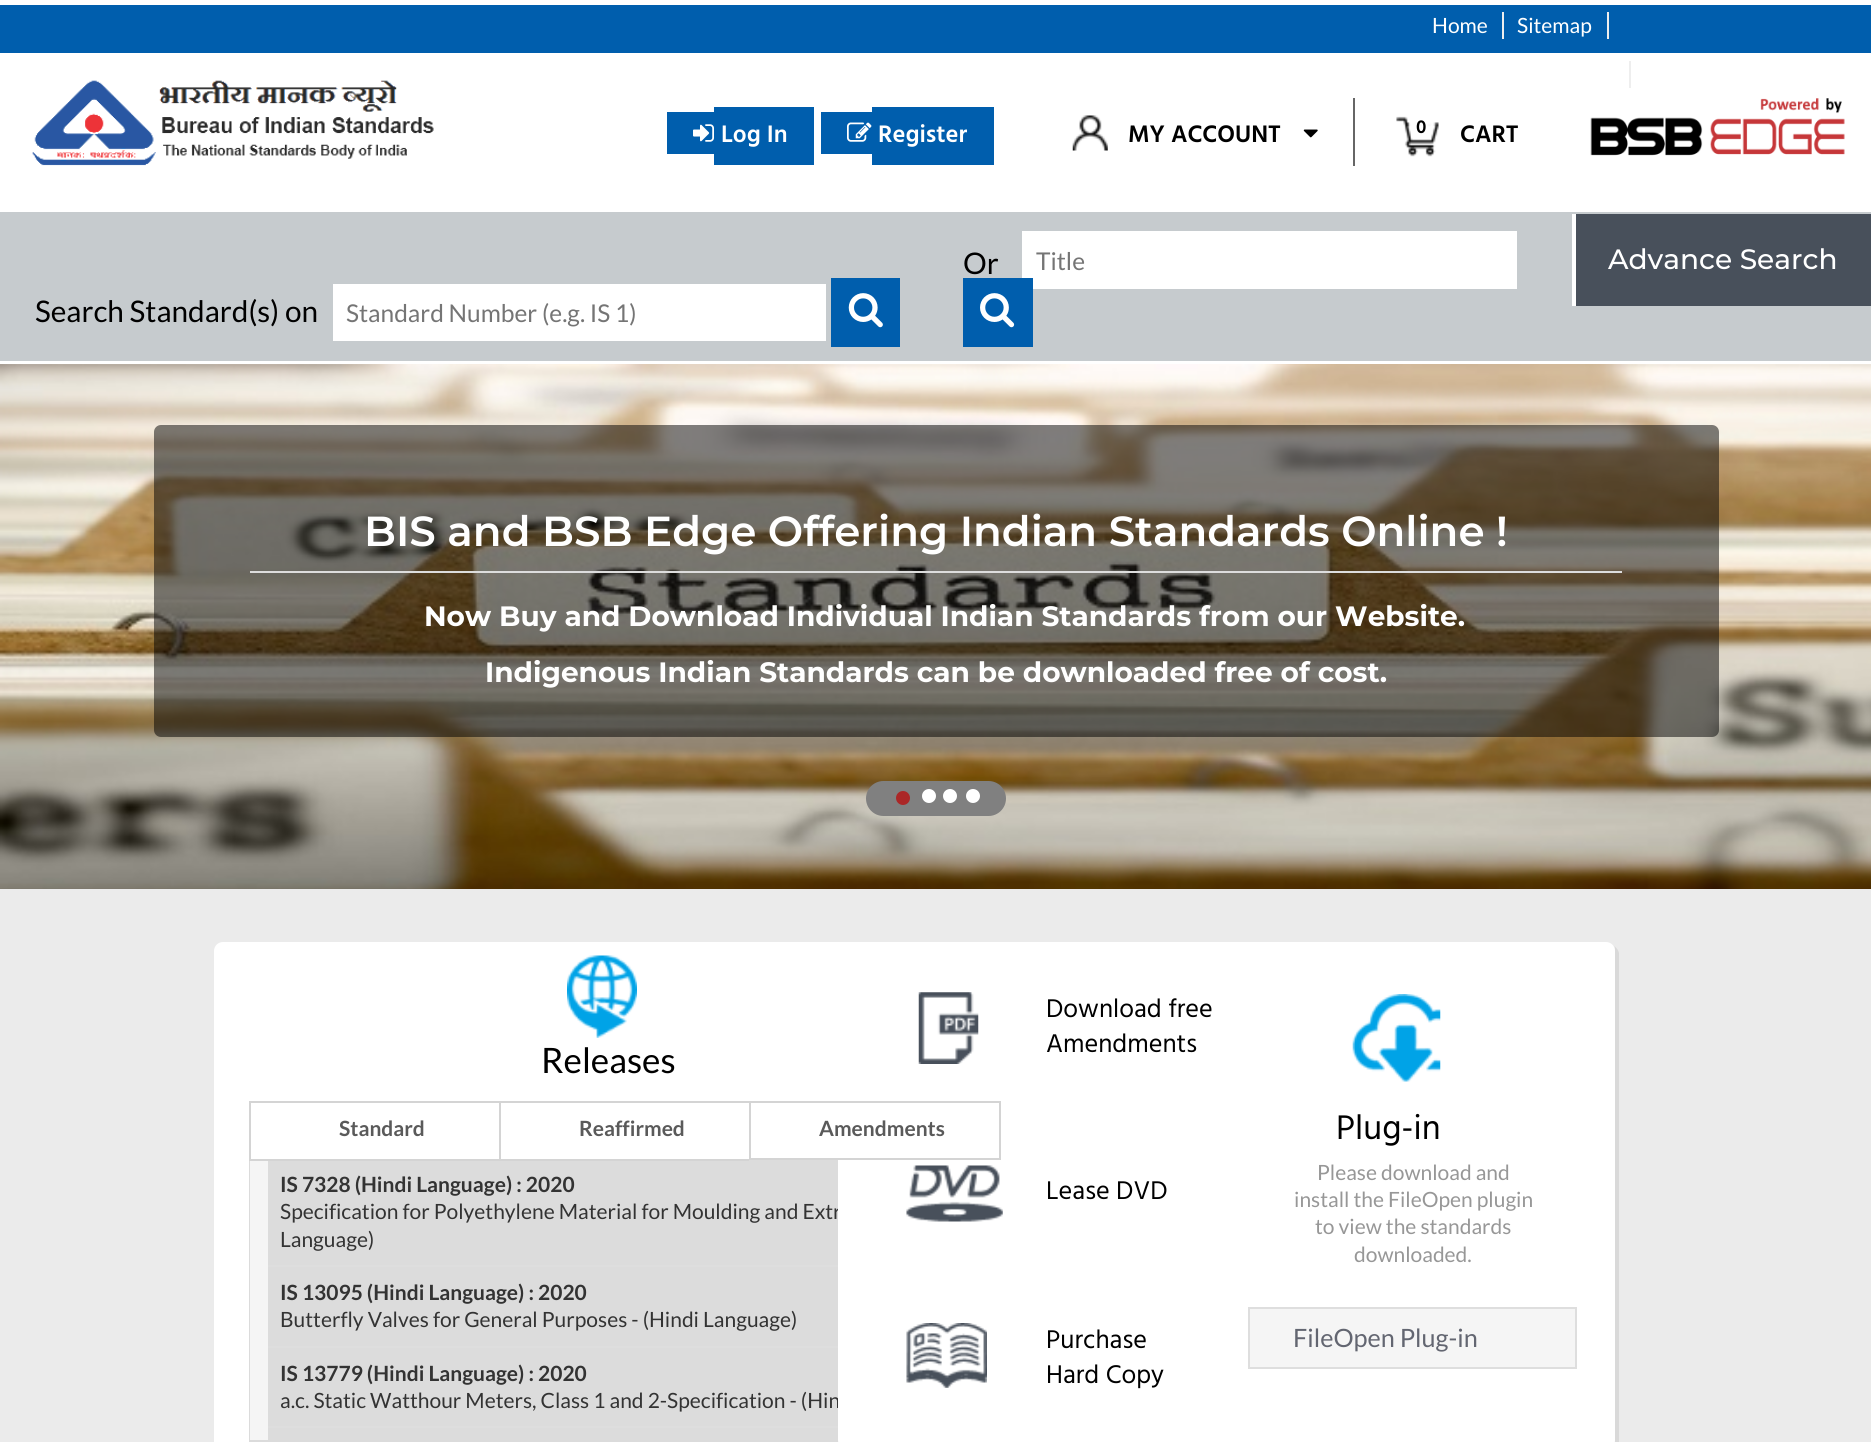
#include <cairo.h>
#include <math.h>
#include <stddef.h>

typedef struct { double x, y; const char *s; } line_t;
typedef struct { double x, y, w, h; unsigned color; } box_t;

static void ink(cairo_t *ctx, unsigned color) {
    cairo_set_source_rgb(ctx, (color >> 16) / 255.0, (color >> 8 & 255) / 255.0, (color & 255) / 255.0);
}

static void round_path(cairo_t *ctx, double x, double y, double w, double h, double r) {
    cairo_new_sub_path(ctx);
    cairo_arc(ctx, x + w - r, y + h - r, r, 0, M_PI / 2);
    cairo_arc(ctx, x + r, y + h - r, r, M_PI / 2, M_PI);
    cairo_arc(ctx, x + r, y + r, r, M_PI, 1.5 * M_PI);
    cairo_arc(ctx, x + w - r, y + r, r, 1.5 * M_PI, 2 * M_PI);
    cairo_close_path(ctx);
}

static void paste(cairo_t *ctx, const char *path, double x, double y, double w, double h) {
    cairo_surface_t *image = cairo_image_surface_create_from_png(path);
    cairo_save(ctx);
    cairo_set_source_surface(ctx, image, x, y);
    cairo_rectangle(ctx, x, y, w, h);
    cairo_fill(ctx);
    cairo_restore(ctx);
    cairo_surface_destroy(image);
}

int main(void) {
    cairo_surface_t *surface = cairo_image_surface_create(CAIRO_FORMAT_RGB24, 1871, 1442);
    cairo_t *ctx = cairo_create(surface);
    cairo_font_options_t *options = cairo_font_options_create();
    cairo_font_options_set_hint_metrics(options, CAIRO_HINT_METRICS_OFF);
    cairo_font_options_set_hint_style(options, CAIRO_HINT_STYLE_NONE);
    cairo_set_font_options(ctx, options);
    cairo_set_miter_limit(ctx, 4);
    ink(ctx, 0xFFFFFF);
    cairo_paint(ctx);
    ink(ctx, 0x005EAD);
    cairo_rectangle(ctx, 0, 5, 1871, 48);
    cairo_fill(ctx);
    cairo_select_font_face(ctx, "Lato", CAIRO_FONT_SLANT_NORMAL, CAIRO_FONT_WEIGHT_NORMAL);
    cairo_set_font_size(ctx, 21);
    ink(ctx, 0xFFFFFF);
    cairo_move_to(ctx, 1432, 33);
    cairo_show_text(ctx, "Home");
    ink(ctx, 0xEEEEEE);
    cairo_rectangle(ctx, 1502, 12, 2, 27);
    cairo_fill(ctx);
    ink(ctx, 0xFFFFFF);
    cairo_move_to(ctx, 1517, 33);
    cairo_show_text(ctx, "Sitemap");
    ink(ctx, 0xEEEEEE);
    cairo_rectangle(ctx, 1607, 12, 2, 27);
    cairo_fill(ctx);
    cairo_rectangle(ctx, 1629, 61, 2, 27);
    cairo_fill(ctx);
    paste(ctx, "media/1.png", 32, 80, 402, 86);
    ink(ctx, 0x005EAD);
    cairo_rectangle(ctx, 667, 112, 47, 42);
    cairo_fill(ctx);
    cairo_rectangle(ctx, 714, 107, 100, 58);
    cairo_fill(ctx);
    paste(ctx, "media/2.png", 693, 124, 21, 18);
    cairo_select_font_face(ctx, "Hind SemiBold", CAIRO_FONT_SLANT_NORMAL, CAIRO_FONT_WEIGHT_NORMAL);
    cairo_set_font_size(ctx, 24.5);
    ink(ctx, 0xFFFFFF);
    cairo_move_to(ctx, 721, 142);
    cairo_show_text(ctx, "Log In");
    ink(ctx, 0x005EAD);
    cairo_rectangle(ctx, 821, 112, 51, 42);
    cairo_fill(ctx);
    cairo_rectangle(ctx, 872, 107, 122, 58);
    cairo_fill(ctx);
    paste(ctx, "media/3.png", 847, 122, 25, 20);
    ink(ctx, 0xFFFFFF);
    cairo_move_to(ctx, 878, 142);
    cairo_show_text(ctx, "Register");
    ink(ctx, 0x666666);
    cairo_rectangle(ctx, 1353, 98, 2, 68);
    cairo_fill(ctx);
    paste(ctx, "media/4.png", 1072, 115, 36, 36);
    ink(ctx, 0x000000);
    cairo_move_to(ctx, 1128, 142);
    cairo_show_text(ctx, "MY ACCOUNT");
    paste(ctx, "media/5.png", 1303, 129, 15, 9);
    paste(ctx, "media/6.png", 1396, 116, 43, 41);
    cairo_set_font_size(ctx, 19);
    cairo_move_to(ctx, 1416, 133);
    cairo_show_text(ctx, "0");
    cairo_set_font_size(ctx, 24.5);
    cairo_move_to(ctx, 1460, 142);
    cairo_show_text(ctx, "CART");
    paste(ctx, "media/7.png", 1590, 98, 255, 58);
    ink(ctx, 0xC6CBCE);
    cairo_rectangle(ctx, 0, 212, 1871, 149);
    cairo_fill(ctx);
    cairo_select_font_face(ctx, "Lato", CAIRO_FONT_SLANT_NORMAL, CAIRO_FONT_WEIGHT_NORMAL);
    cairo_set_font_size(ctx, 29.75);
    ink(ctx, 0x000000);
    cairo_move_to(ctx, 963, 274);
    cairo_show_text(ctx, "Or");
    ink(ctx, 0xFFFFFF);
    cairo_rectangle(ctx, 1022, 231, 495, 58);
    cairo_fill(ctx);
    cairo_set_font_size(ctx, 24.5);
    ink(ctx, 0x757575);
    cairo_move_to(ctx, 1036, 270);
    cairo_show_text(ctx, "Title");
    ink(ctx, 0x005EAD);
    cairo_rectangle(ctx, 963, 278, 70, 69);
    cairo_fill(ctx);
    paste(ctx, "media/8.png", 980, 293, 35, 35);
    ink(ctx, 0x48505B);
    cairo_rectangle(ctx, 1576, 214, 295, 92);
    cairo_fill(ctx);
    ink(ctx, 0xFFFFFF);
    cairo_rectangle(ctx, 1572, 214, 4, 92);
    cairo_fill(ctx);
    cairo_select_font_face(ctx, "Montserrat Medium", CAIRO_FONT_SLANT_NORMAL, CAIRO_FONT_WEIGHT_NORMAL);
    cairo_set_font_size(ctx, 28);
    cairo_move_to(ctx, 1608, 269);
    cairo_show_text(ctx, "Advance Search");
    cairo_select_font_face(ctx, "Lato", CAIRO_FONT_SLANT_NORMAL, CAIRO_FONT_WEIGHT_NORMAL);
    cairo_set_font_size(ctx, 29.75);
    ink(ctx, 0x000000);
    cairo_move_to(ctx, 35, 322);
    cairo_show_text(ctx, "Search Standard(s) on");
    ink(ctx, 0xFFFFFF);
    cairo_rectangle(ctx, 333, 284, 493, 57);
    cairo_fill(ctx);
    cairo_set_font_size(ctx, 24.5);
    ink(ctx, 0x757575);
    cairo_move_to(ctx, 346, 322);
    cairo_show_text(ctx, "Standard Number (e.g. IS 1)");
    ink(ctx, 0x005EAD);
    cairo_rectangle(ctx, 831, 278, 69, 69);
    cairo_fill(ctx);
    paste(ctx, "media/9.png", 848, 293, 35, 35);
    paste(ctx, "media/10.png", 0, 364, 1871, 525);
    cairo_set_source_rgba(ctx, 0, 0, 0, 0.5);
    round_path(ctx, 154, 425, 1565, 312, 7);
    cairo_fill(ctx);
    cairo_select_font_face(ctx, "Montserrat SemiBold", CAIRO_FONT_SLANT_NORMAL, CAIRO_FONT_WEIGHT_NORMAL);
    cairo_set_font_size(ctx, 42);
    ink(ctx, 0xFFFFFF);
    cairo_move_to(ctx, 364, 546);
    cairo_show_text(ctx, "BIS and BSB Edge Offering Indian Standards Online !");
    ink(ctx, 0xDDDDDD);
    cairo_rectangle(ctx, 250, 571, 1372, 2);
    cairo_fill(ctx);
    cairo_select_font_face(ctx, "Montserrat", CAIRO_FONT_SLANT_NORMAL, CAIRO_FONT_WEIGHT_BOLD);
    cairo_set_font_size(ctx, 28);
    ink(ctx, 0xFFFFFF);
    cairo_move_to(ctx, 424, 626);
    cairo_show_text(ctx, "Now Buy and Download Individual Indian Standards from our Website.");
    cairo_move_to(ctx, 485, 682);
    cairo_show_text(ctx, "Indigenous Indian Standards can be downloaded free of cost.");
    ink(ctx, 0x808080);
    round_path(ctx, 866, 781, 140, 35, 17.5);
    cairo_fill(ctx);
    ink(ctx, 0xAB2727);
    cairo_arc(ctx, 903, 798, 6, 0, 2 * M_PI);
    cairo_fill_preserve(ctx);
    cairo_stroke(ctx);
    ink(ctx, 0xFFFFFF);
    cairo_arc(ctx, 929, 796, 6, 0, 2 * M_PI);
    cairo_fill_preserve(ctx);
    cairo_stroke(ctx);
    cairo_arc(ctx, 950, 796, 6, 0, 2 * M_PI);
    cairo_fill_preserve(ctx);
    cairo_stroke(ctx);
    cairo_arc(ctx, 973, 796, 6, 0, 2 * M_PI);
    cairo_fill_preserve(ctx);
    cairo_stroke(ctx);
    ink(ctx, 0xEBEBEB);
    cairo_rectangle(ctx, 0, 889, 1871, 553);
    cairo_fill(ctx);
    ink(ctx, 0xFFFFFF);
    round_path(ctx, 214, 942, 822, 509, 9);
    cairo_fill(ctx);
    paste(ctx, "media/11.png", 567, 955, 70, 83);
    cairo_select_font_face(ctx, "Lato", CAIRO_FONT_SLANT_NORMAL, CAIRO_FONT_WEIGHT_NORMAL);
    cairo_set_font_size(ctx, 35);
    ink(ctx, 0x000000);
    cairo_move_to(ctx, 541, 1073);
    cairo_show_text(ctx, "Releases");
    cairo_rectangle(ctx, 250, 1158, 750, 283);
    ink(ctx, 0xDBDBDB);
    cairo_stroke(ctx);
    {
        static const box_t items[] = {
            {251, 1157, 248, 2, 0xFFFFFF},
            {249, 1101, 500, 2, 0xD4D4D4},
            {268, 1160, 570, 105, 0xDCDCDC},
            {249, 1159, 500, 2, 0xD4D4D4},
            {249, 1101, 2, 59, 0xD4D4D4},
        };
        for (size_t i = 0; i < sizeof items / sizeof *items; i++) {
            ink(ctx, items[i].color);
            cairo_rectangle(ctx, items[i].x, items[i].y, items[i].w, items[i].h);
            cairo_fill(ctx);
        }
    }
    cairo_select_font_face(ctx, "Lato", CAIRO_FONT_SLANT_NORMAL, CAIRO_FONT_WEIGHT_BOLD);
    cairo_set_font_size(ctx, 21);
    ink(ctx, 0x5A5A5A);
    cairo_move_to(ctx, 339, 1136);
    cairo_show_text(ctx, "Standard");
    ink(ctx, 0xFFFFFF);
    cairo_rectangle(ctx, 501, 1157, 248, 2);
    cairo_fill(ctx);
    ink(ctx, 0xD4D4D4);
    cairo_rectangle(ctx, 499, 1101, 2, 59);
    cairo_fill(ctx);
    ink(ctx, 0x5A5A5A);
    cairo_move_to(ctx, 579, 1136);
    cairo_show_text(ctx, "Reaffirmed");
    ink(ctx, 0xFFFFFF);
    cairo_rectangle(ctx, 751, 1157, 87, 1);
    cairo_fill(ctx);
    cairo_select_font_face(ctx, "Lato", CAIRO_FONT_SLANT_NORMAL, CAIRO_FONT_WEIGHT_NORMAL);
    ink(ctx, 0x333333);
    cairo_move_to(ctx, 280, 1219);
    cairo_show_text(ctx, "Specification for Polyethylene Material for Moulding and Extr");
    ink(ctx, 0xDCDCDC);
    cairo_rectangle(ctx, 268, 1348, 570, 78);
    cairo_fill(ctx);
    ink(ctx, 0x333333);
    cairo_move_to(ctx, 280, 1408);
    cairo_show_text(ctx, "a.c. Static Watthour Meters, Class 1 and 2-Specification - (Hin");
    ink(ctx, 0xFFFFFF);
    round_path(ctx, 838, 942, 490, 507, 9);
    cairo_fill(ctx);
    cairo_rectangle(ctx, 750, 1102, 250, 57);
    ink(ctx, 0xD4D4D4);
    cairo_stroke(ctx);
    cairo_select_font_face(ctx, "Lato", CAIRO_FONT_SLANT_NORMAL, CAIRO_FONT_WEIGHT_BOLD);
    ink(ctx, 0x5A5A5A);
    cairo_move_to(ctx, 819, 1136);
    cairo_show_text(ctx, "Amendments");
    ink(ctx, 0xF5F5F5);
    cairo_rectangle(ctx, 250, 1161, 18, 279);
    cairo_fill(ctx);
    ink(ctx, 0xDEDEDE);
    cairo_rectangle(ctx, 268, 1265, 570, 2);
    cairo_fill(ctx);
    ink(ctx, 0x333333);
    cairo_move_to(ctx, 280, 1192);
    cairo_show_text(ctx, "IS 7328 (Hindi Language) : 2020");
    cairo_select_font_face(ctx, "Lato", CAIRO_FONT_SLANT_NORMAL, CAIRO_FONT_WEIGHT_NORMAL);
    cairo_move_to(ctx, 280, 1247);
    cairo_show_text(ctx, "Language)");
    ink(ctx, 0xDCDCDC);
    cairo_rectangle(ctx, 268, 1267, 570, 79);
    cairo_fill(ctx);
    ink(ctx, 0xDEDEDE);
    cairo_rectangle(ctx, 268, 1346, 570, 2);
    cairo_fill(ctx);
    cairo_select_font_face(ctx, "Lato", CAIRO_FONT_SLANT_NORMAL, CAIRO_FONT_WEIGHT_BOLD);
    ink(ctx, 0x333333);
    cairo_move_to(ctx, 280, 1300);
    cairo_show_text(ctx, "IS 13095 (Hindi Language) : 2020");
    cairo_select_font_face(ctx, "Lato", CAIRO_FONT_SLANT_NORMAL, CAIRO_FONT_WEIGHT_NORMAL);
    cairo_move_to(ctx, 280, 1327);
    cairo_show_text(ctx, "Butterfly Valves for General Purposes - (Hindi Language)");
    ink(ctx, 0xDEDEDE);
    cairo_rectangle(ctx, 268, 1426, 570, 2);
    cairo_fill(ctx);
    cairo_select_font_face(ctx, "Lato", CAIRO_FONT_SLANT_NORMAL, CAIRO_FONT_WEIGHT_BOLD);
    ink(ctx, 0x333333);
    cairo_move_to(ctx, 280, 1381);
    cairo_show_text(ctx, "IS 13779 (Hindi Language) : 2020");
    ink(ctx, 0xDCDCDC);
    cairo_rectangle(ctx, 268, 1428, 570, 12);
    cairo_fill(ctx);
    paste(ctx, "media/12.png", 918, 992, 61, 72);
    cairo_select_font_face(ctx, "Hind", CAIRO_FONT_SLANT_NORMAL, CAIRO_FONT_WEIGHT_NORMAL);
    cairo_set_font_size(ctx, 26.25);
    ink(ctx, 0x000000);
    cairo_move_to(ctx, 1046, 1017);
    cairo_show_text(ctx, "Download free");
    cairo_move_to(ctx, 1046, 1052);
    cairo_show_text(ctx, "Amendments");
    paste(ctx, "media/13.png", 906, 1165, 97, 57);
    cairo_move_to(ctx, 1046, 1199);
    cairo_show_text(ctx, "Lease DVD");
    paste(ctx, "media/14.png", 906, 1323, 81, 65);
    cairo_move_to(ctx, 1046, 1348);
    cairo_show_text(ctx, "Purchase");
    cairo_move_to(ctx, 1046, 1383);
    cairo_show_text(ctx, "Hard Copy");
    ink(ctx, 0xD9D9D9);
    cairo_new_path(ctx);
    cairo_move_to(ctx, 1217, 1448);
    cairo_curve_to(ctx, 1218, 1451, 1221, 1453, 1225, 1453);
    cairo_line_to(ctx, 1610, 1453);
    cairo_curve_to(ctx, 1615, 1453, 1619, 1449, 1619, 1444);
    cairo_line_to(ctx, 1619, 954);
    cairo_curve_to(ctx, 1619, 951, 1617, 948, 1614, 946);
    cairo_curve_to(ctx, 1615, 947, 1615, 949, 1615, 950);
    cairo_line_to(ctx, 1615, 1440);
    cairo_curve_to(ctx, 1615, 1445, 1611, 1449, 1606, 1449);
    cairo_line_to(ctx, 1222, 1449);
    cairo_curve_to(ctx, 1220, 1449, 1218, 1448, 1217, 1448);
    cairo_close_path(ctx);
    cairo_fill(ctx);
    ink(ctx, 0xFFFFFF);
    round_path(ctx, 1213, 942, 402, 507, 9);
    cairo_fill(ctx);
    paste(ctx, "media/15.png", 1352, 994, 89, 88);
    cairo_set_font_size(ctx, 35);
    ink(ctx, 0x000000);
    cairo_move_to(ctx, 1336, 1139);
    cairo_show_text(ctx, "Plug-in");
    cairo_select_font_face(ctx, "Lato", CAIRO_FONT_SLANT_NORMAL, CAIRO_FONT_WEIGHT_NORMAL);
    cairo_set_font_size(ctx, 21);
    ink(ctx, 0x979797);
    {
        static const line_t items[] = {
            {1317, 1180, "Please download and"},
            {1294, 1207, "install the FileOpen plugin"},
            {1315, 1234, "to view the standards"},
            {1354, 1262, "downloaded."},
        };
        for (size_t i = 0; i < sizeof items / sizeof *items; i++) {
            cairo_move_to(ctx, items[i].x, items[i].y);
            cairo_show_text(ctx, items[i].s);
        }
    }
    ink(ctx, 0xF5F5F5);
    cairo_rectangle(ctx, 1249, 1308, 327, 60);
    cairo_fill_preserve(ctx);
    ink(ctx, 0xDEDEDE);
    cairo_stroke(ctx);
    cairo_set_font_size(ctx, 25.25);
    ink(ctx, 0x636671);
    cairo_move_to(ctx, 1293, 1347);
    cairo_show_text(ctx, "FileOpen Plug-in");
    cairo_surface_write_to_png(surface, "image.png");
    cairo_font_options_destroy(options);
    cairo_destroy(ctx);
    cairo_surface_destroy(surface);
    return 0;
}
